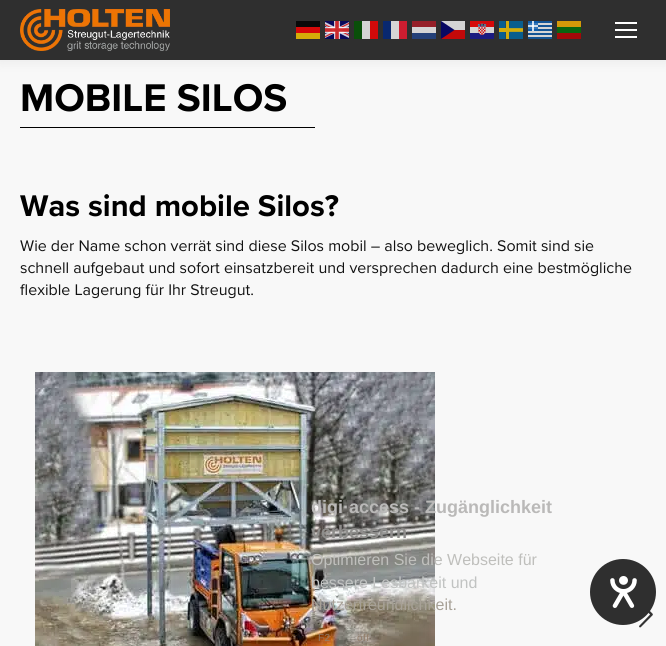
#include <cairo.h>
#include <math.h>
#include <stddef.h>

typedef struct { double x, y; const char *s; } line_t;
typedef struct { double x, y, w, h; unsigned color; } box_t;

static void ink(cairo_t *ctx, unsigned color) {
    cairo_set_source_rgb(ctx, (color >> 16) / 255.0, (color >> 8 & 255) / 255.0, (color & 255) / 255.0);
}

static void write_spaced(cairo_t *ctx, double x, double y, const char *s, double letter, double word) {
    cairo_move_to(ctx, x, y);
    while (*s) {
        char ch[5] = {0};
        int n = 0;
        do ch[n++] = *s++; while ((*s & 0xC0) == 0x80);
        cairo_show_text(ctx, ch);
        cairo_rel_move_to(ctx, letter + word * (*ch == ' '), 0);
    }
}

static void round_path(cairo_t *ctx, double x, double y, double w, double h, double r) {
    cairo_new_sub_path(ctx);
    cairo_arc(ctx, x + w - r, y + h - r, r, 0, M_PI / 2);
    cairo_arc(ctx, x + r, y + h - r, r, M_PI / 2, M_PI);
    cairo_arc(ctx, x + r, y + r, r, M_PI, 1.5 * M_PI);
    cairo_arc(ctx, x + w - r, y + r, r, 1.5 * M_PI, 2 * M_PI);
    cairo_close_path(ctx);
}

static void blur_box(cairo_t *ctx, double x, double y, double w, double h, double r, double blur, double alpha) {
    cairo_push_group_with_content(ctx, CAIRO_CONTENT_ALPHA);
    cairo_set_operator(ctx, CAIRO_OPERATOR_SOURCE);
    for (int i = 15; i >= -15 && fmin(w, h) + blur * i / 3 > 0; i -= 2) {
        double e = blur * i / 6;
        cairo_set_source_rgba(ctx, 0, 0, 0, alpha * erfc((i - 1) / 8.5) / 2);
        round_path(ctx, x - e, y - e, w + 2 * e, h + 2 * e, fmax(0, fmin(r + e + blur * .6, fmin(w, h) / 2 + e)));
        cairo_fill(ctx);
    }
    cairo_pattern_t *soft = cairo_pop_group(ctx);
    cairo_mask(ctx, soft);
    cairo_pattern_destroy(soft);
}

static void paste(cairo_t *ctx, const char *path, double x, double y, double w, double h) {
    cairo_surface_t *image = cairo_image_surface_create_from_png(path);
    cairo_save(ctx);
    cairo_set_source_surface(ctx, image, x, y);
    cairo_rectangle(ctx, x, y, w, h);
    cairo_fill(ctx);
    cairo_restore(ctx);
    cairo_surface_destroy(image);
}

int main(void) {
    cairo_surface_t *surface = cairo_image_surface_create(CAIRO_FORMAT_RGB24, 666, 646);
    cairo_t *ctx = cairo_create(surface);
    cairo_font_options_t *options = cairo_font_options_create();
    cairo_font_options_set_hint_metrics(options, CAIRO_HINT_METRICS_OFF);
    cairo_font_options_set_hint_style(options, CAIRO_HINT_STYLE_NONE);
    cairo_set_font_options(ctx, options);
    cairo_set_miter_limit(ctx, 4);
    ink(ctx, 0xF8F8F8);
    cairo_paint(ctx);
    ink(ctx, 0x000000);
    blur_box(ctx, -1, -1, 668, 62, 0, 7.5, 0.07);
    ink(ctx, 0x2F2F2F);
    cairo_rectangle(ctx, 0, 0, 666, 60);
    cairo_fill(ctx);
    paste(ctx, "media/1.png", 20, 9, 150, 42);
    ink(ctx, 0x090909);
    cairo_rectangle(ctx, 296, 21, 24, 6);
    cairo_fill(ctx);
    paste(ctx, "media/2.png", 325, 21, 24, 18);
    {
        static const box_t items[] = {
            {354, 21, 8, 18, 0x094F09},
            {362, 21, 8, 18, 0xD5D5D5},
            {370, 21, 8, 18, 0xD30909},
            {383, 21, 8, 18, 0x09286F},
            {391, 21, 8, 18, 0xD5D5D5},
            {399, 21, 8, 18, 0xCC1D30},
            {412, 21, 24, 6, 0x952029},
            {441, 21, 24, 9, 0xD5D5D5},
            {441, 30, 24, 9, 0xC30909},
        };
        for (size_t i = 0; i < sizeof items / sizeof *items; i++) {
            ink(ctx, items[i].color);
            cairo_rectangle(ctx, items[i].x, items[i].y, items[i].w, items[i].h);
            cairo_fill(ctx);
        }
    }
    ink(ctx, 0x090962);
    cairo_set_fill_rule(ctx, CAIRO_FILL_RULE_EVEN_ODD);
    cairo_new_path(ctx);
    cairo_move_to(ctx, 441, 21);
    cairo_line_to(ctx, 454.5, 30);
    cairo_line_to(ctx, 441, 39);
    cairo_close_path(ctx);
    cairo_fill(ctx);
    paste(ctx, "media/3.png", 470, 21, 24, 18);
    paste(ctx, "media/4.png", 499, 21, 24, 18);
    paste(ctx, "media/5.png", 528, 21, 24, 18);
    {
        static const box_t items[] = {
            {557, 21, 24, 6, 0xD59909},
            {296, 27, 24, 6, 0xD50909},
            {412, 27, 24, 6, 0xD5D5D5},
            {557, 27, 24, 6, 0x096510},
            {296, 33, 24, 6, 0xD5AD09},
            {412, 33, 24, 6, 0x244179},
            {557, 33, 24, 6, 0xA20909},
            {615, 22, 22, 2, 0xFFFFFF},
            {615, 29, 22, 2, 0xFFFFFF},
            {615, 36, 22, 2, 0xFFFFFF},
        };
        for (size_t i = 0; i < sizeof items / sizeof *items; i++) {
            ink(ctx, items[i].color);
            cairo_rectangle(ctx, items[i].x, items[i].y, items[i].w, items[i].h);
            cairo_fill(ctx);
        }
    }
    cairo_select_font_face(ctx, "Proxima Nova", CAIRO_FONT_SLANT_NORMAL, CAIRO_FONT_WEIGHT_BOLD);
    cairo_set_font_size(ctx, 40);
    ink(ctx, 0x000000);
    cairo_move_to(ctx, 20, 111);
    cairo_show_text(ctx, "MOBILE SILOS");
    cairo_rectangle(ctx, 20, 127, 295, 1);
    cairo_fill(ctx);
    cairo_set_font_size(ctx, 31);
    cairo_move_to(ctx, 20, 216);
    cairo_show_text(ctx, "Was sind mobile Silos?");
    cairo_select_font_face(ctx, "Proxima Nova", CAIRO_FONT_SLANT_NORMAL, CAIRO_FONT_WEIGHT_NORMAL);
    cairo_set_font_size(ctx, 16);
    ink(ctx, 0x121212);
    {
        static const line_t items[] = {
            {20, 251, "Wie der Name schon verrät sind diese Silos mobil – also beweglich. Somit sind sie"},
            {20, 273, "schnell aufgebaut und sofort einsatzbereit und versprechen dadurch eine bestmögliche"},
            {20, 295, "flexible Lagerung für Ihr Streugut."},
        };
        for (size_t i = 0; i < sizeof items / sizeof *items; i++) {
            cairo_move_to(ctx, items[i].x, items[i].y);
            cairo_show_text(ctx, items[i].s);
        }
    }
    paste(ctx, "media/6.png", 35, 372, 400, 274);
    paste(ctx, "media/7.png", 639, 611, 14, 17);
    cairo_select_font_face(ctx, "Liberation Sans", CAIRO_FONT_SLANT_NORMAL, CAIRO_FONT_WEIGHT_BOLD);
    cairo_set_font_size(ctx, 18);
    ink(ctx, 0xBAB9B8);
    cairo_move_to(ctx, 311, 513);
    cairo_show_text(ctx, "digi·access - Zugänglichkeit");
    ink(ctx, 0x8E8D8B);
    cairo_move_to(ctx, 311, 538);
    cairo_show_text(ctx, "verbessern");
    cairo_select_font_face(ctx, "Liberation Sans", CAIRO_FONT_SLANT_NORMAL, CAIRO_FONT_WEIGHT_NORMAL);
    cairo_set_font_size(ctx, 16);
    ink(ctx, 0xBFBFBC);
    cairo_move_to(ctx, 311, 565);
    cairo_show_text(ctx, "Optimieren Sie die Webseite für");
    ink(ctx, 0xC1C3C2);
    cairo_move_to(ctx, 311, 588);
    cairo_show_text(ctx, "bessere Lesbarkeit und");
    ink(ctx, 0xA7A197);
    cairo_move_to(ctx, 311, 610);
    cairo_show_text(ctx, "Nutzerfreundlichkeit.");
    cairo_set_font_size(ctx, 10);
    ink(ctx, 0x927D69);
    write_spaced(ctx, 318, 641, "F2", 0.5, 0);
    write_spaced(ctx, 357, 641, "öff", 0.5, 0);
    ink(ctx, 0x2F2F2F);
    cairo_new_path(ctx);
    cairo_arc(ctx, 623, 592, 33, 0, 2 * M_PI);
    cairo_fill(ctx);
    paste(ctx, "media/8.png", 610, 576, 27, 32);
    cairo_surface_write_to_png(surface, "image.png");
    cairo_font_options_destroy(options);
    cairo_destroy(ctx);
    cairo_surface_destroy(surface);
    return 0;
}
